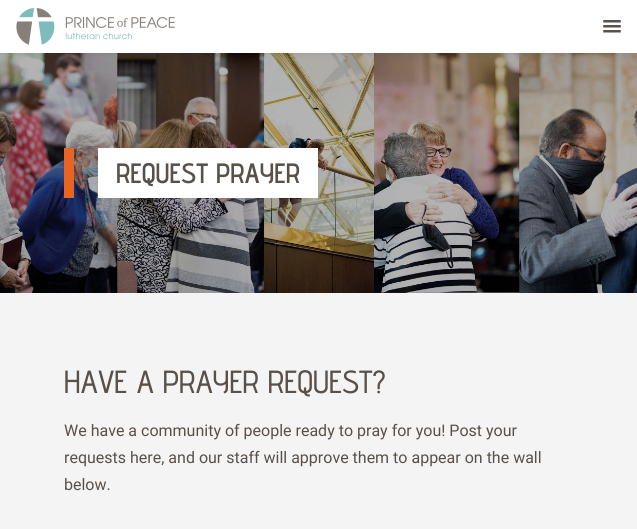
#include <cairo.h>
#include <math.h>
#include <stddef.h>

typedef struct { double x, y; const char *s; } line_t;

static void ink(cairo_t *ctx, unsigned color) {
    cairo_set_source_rgb(ctx, (color >> 16) / 255.0, (color >> 8 & 255) / 255.0, (color & 255) / 255.0);
}

static void round_path(cairo_t *ctx, double x, double y, double w, double h, double r) {
    cairo_new_sub_path(ctx);
    cairo_arc(ctx, x + w - r, y + h - r, r, 0, M_PI / 2);
    cairo_arc(ctx, x + r, y + h - r, r, M_PI / 2, M_PI);
    cairo_arc(ctx, x + r, y + r, r, M_PI, 1.5 * M_PI);
    cairo_arc(ctx, x + w - r, y + r, r, 1.5 * M_PI, 2 * M_PI);
    cairo_close_path(ctx);
}

static void blur_box(cairo_t *ctx, double x, double y, double w, double h, double r, double blur, double alpha) {
    cairo_push_group_with_content(ctx, CAIRO_CONTENT_ALPHA);
    cairo_set_operator(ctx, CAIRO_OPERATOR_SOURCE);
    for (int i = 15; i >= -15 && fmin(w, h) + blur * i / 3 > 0; i -= 2) {
        double e = blur * i / 6;
        cairo_set_source_rgba(ctx, 0, 0, 0, alpha * erfc((i - 1) / 8.5) / 2);
        round_path(ctx, x - e, y - e, w + 2 * e, h + 2 * e, fmax(0, fmin(r + e + blur * .6, fmin(w, h) / 2 + e)));
        cairo_fill(ctx);
    }
    cairo_pattern_t *soft = cairo_pop_group(ctx);
    cairo_mask(ctx, soft);
    cairo_pattern_destroy(soft);
}

static void paste(cairo_t *ctx, const char *path, double x, double y, double w, double h) {
    cairo_surface_t *image = cairo_image_surface_create_from_png(path);
    cairo_save(ctx);
    cairo_set_source_surface(ctx, image, x, y);
    cairo_rectangle(ctx, x, y, w, h);
    cairo_fill(ctx);
    cairo_restore(ctx);
    cairo_surface_destroy(image);
}

int main(void) {
    cairo_surface_t *surface = cairo_image_surface_create(CAIRO_FORMAT_RGB24, 637, 529);
    cairo_t *ctx = cairo_create(surface);
    cairo_font_options_t *options = cairo_font_options_create();
    cairo_font_options_set_hint_metrics(options, CAIRO_HINT_METRICS_OFF);
    cairo_font_options_set_hint_style(options, CAIRO_HINT_STYLE_NONE);
    cairo_set_font_options(ctx, options);
    cairo_set_miter_limit(ctx, 4);
    ink(ctx, 0xF4F4F4);
    cairo_paint(ctx);
    paste(ctx, "media/3.png", 0, 53, 637, 240);
    ink(ctx, 0x000000);
    blur_box(ctx, 0, 0, 637, 53, 0, 3.5, 0.1);
    ink(ctx, 0xFFFFFF);
    cairo_rectangle(ctx, 0, 0, 637, 53);
    cairo_fill(ctx);
    paste(ctx, "media/1.png", 16, 8, 159, 37);
    paste(ctx, "media/2.png", 603, 20, 18, 13);
    ink(ctx, 0xE86423);
    cairo_rectangle(ctx, 64, 148, 10, 50);
    cairo_fill(ctx);
    ink(ctx, 0xFFFFFF);
    cairo_rectangle(ctx, 98, 148, 220, 50);
    cairo_fill(ctx);
    cairo_select_font_face(ctx, "Advent Pro SemiBold", CAIRO_FONT_SLANT_NORMAL, CAIRO_FONT_WEIGHT_NORMAL);
    cairo_set_font_size(ctx, 28);
    ink(ctx, 0x595049);
    cairo_move_to(ctx, 116, 183);
    cairo_show_text(ctx, "REQUEST PRAYER");
    cairo_select_font_face(ctx, "Advent Pro Medium", CAIRO_FONT_SLANT_NORMAL, CAIRO_FONT_WEIGHT_NORMAL);
    cairo_set_font_size(ctx, 32);
    cairo_move_to(ctx, 64, 393);
    cairo_show_text(ctx, "HAVE A PRAYER REQUEST?");
    cairo_select_font_face(ctx, "Roboto", CAIRO_FONT_SLANT_NORMAL, CAIRO_FONT_WEIGHT_NORMAL);
    cairo_set_font_size(ctx, 16);
    {
        static const line_t items[] = {
            {64, 436, "We have a community of people ready to pray for you! Post your"},
            {64, 463, "requests here, and our staff will approve them to appear on the wall"},
            {64, 490, "below."},
        };
        for (size_t i = 0; i < sizeof items / sizeof *items; i++) {
            cairo_move_to(ctx, items[i].x, items[i].y);
            cairo_show_text(ctx, items[i].s);
        }
    }
    cairo_surface_write_to_png(surface, "image.png");
    cairo_font_options_destroy(options);
    cairo_destroy(ctx);
    cairo_surface_destroy(surface);
    return 0;
}
